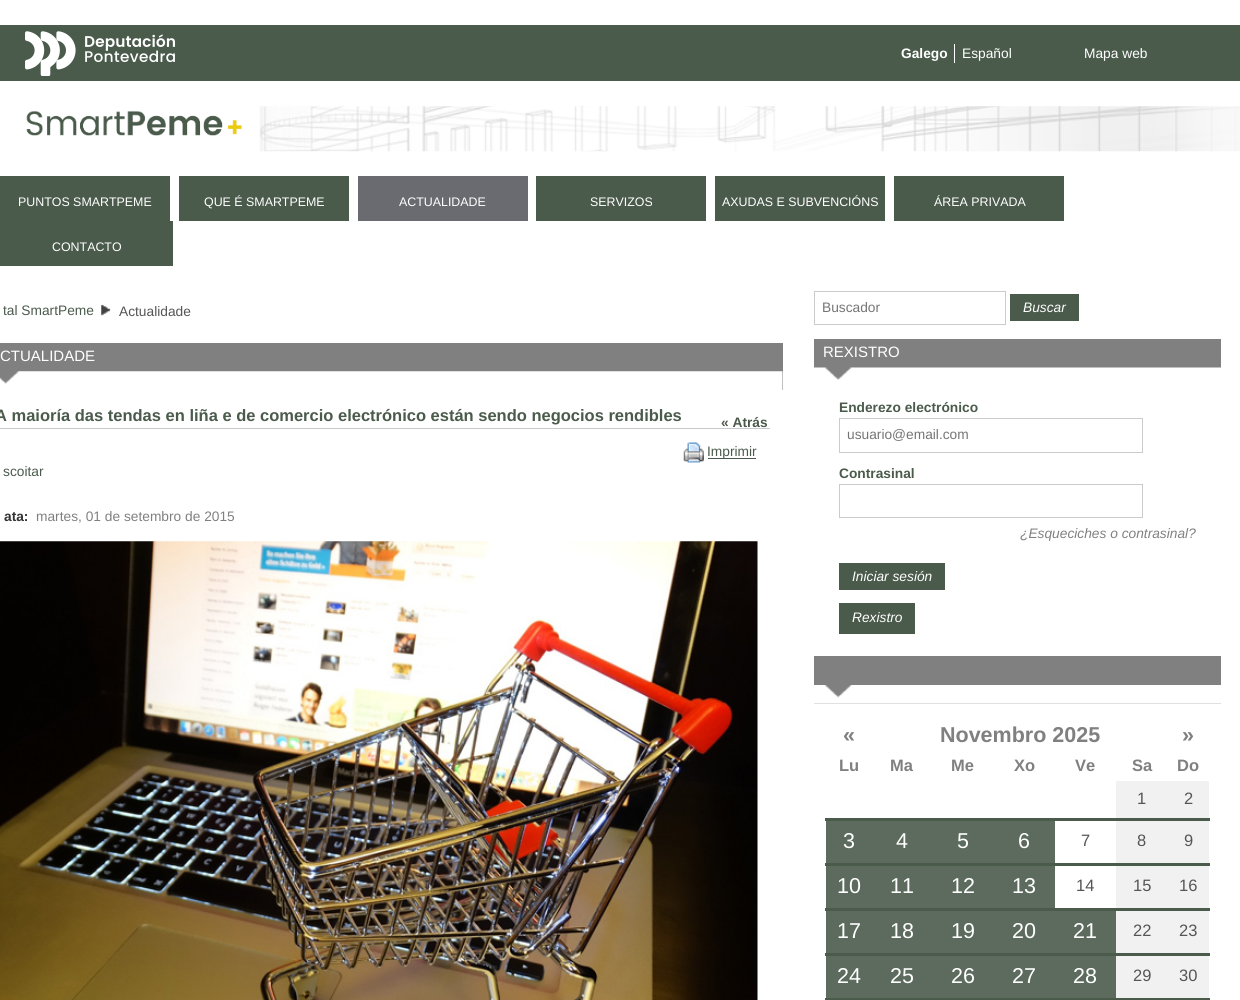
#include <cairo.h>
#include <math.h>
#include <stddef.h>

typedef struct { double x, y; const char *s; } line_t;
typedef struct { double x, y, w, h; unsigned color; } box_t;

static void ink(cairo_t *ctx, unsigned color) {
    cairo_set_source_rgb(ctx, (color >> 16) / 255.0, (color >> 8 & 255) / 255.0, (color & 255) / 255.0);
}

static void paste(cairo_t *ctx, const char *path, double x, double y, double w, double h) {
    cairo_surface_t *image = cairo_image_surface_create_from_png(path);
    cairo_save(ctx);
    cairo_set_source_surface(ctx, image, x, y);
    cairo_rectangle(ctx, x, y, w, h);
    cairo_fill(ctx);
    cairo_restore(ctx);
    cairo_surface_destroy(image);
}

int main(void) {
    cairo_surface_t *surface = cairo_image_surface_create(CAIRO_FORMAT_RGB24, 1240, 1000);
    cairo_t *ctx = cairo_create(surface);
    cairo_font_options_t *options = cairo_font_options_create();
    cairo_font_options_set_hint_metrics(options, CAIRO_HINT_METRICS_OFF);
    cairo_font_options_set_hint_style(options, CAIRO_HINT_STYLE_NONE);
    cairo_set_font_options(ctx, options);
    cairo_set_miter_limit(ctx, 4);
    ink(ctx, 0xFFFFFF);
    cairo_paint(ctx);
    {
        static const box_t items[] = {
            {826, 956, 290, 42, 0x5C6B5D},
            {826, 911, 290, 42, 0x5C6B5D},
            {826, 866, 229, 42, 0x5C6B5D},
            {826, 821, 229, 42, 0x5C6B5D},
            {0, 25, 1240, 56, 0x4A5A4B},
        };
        for (size_t i = 0; i < sizeof items / sizeof *items; i++) {
            ink(ctx, items[i].color);
            cairo_rectangle(ctx, items[i].x, items[i].y, items[i].w, items[i].h);
            cairo_fill(ctx);
        }
    }
    paste(ctx, "media/1.png", 25, 31, 150, 45);
    ink(ctx, 0xFFFFFF);
    cairo_rectangle(ctx, 954, 44, 1, 19);
    cairo_fill(ctx);
    cairo_select_font_face(ctx, "Liberation Sans", CAIRO_FONT_SLANT_NORMAL, CAIRO_FONT_WEIGHT_BOLD);
    cairo_set_font_size(ctx, 13.75);
    cairo_move_to(ctx, 901, 58);
    cairo_show_text(ctx, "Galego");
    cairo_select_font_face(ctx, "Liberation Sans", CAIRO_FONT_SLANT_NORMAL, CAIRO_FONT_WEIGHT_NORMAL);
    cairo_move_to(ctx, 962, 58);
    cairo_show_text(ctx, "Español");
    cairo_move_to(ctx, 1084, 58);
    cairo_show_text(ctx, "Mapa web");
    paste(ctx, "media/2.png", 259, 106, 981, 46);
    paste(ctx, "media/3.png", 26, 110, 216, 26);
    ink(ctx, 0x4A5A4B);
    cairo_rectangle(ctx, 0, 176, 170, 45);
    cairo_fill(ctx);
    cairo_set_font_size(ctx, 12.4);
    ink(ctx, 0xFFFFFF);
    cairo_move_to(ctx, 18, 206);
    cairo_show_text(ctx, "PUNTOS SMARTPEME");
    ink(ctx, 0x4A5A4B);
    cairo_rectangle(ctx, 179, 176, 170, 45);
    cairo_fill(ctx);
    ink(ctx, 0xFFFFFF);
    cairo_move_to(ctx, 204, 206);
    cairo_show_text(ctx, "QUE É SMARTPEME");
    ink(ctx, 0x6A6B70);
    cairo_rectangle(ctx, 358, 176, 170, 45);
    cairo_fill(ctx);
    ink(ctx, 0xFFFFFF);
    cairo_move_to(ctx, 399, 206);
    cairo_show_text(ctx, "ACTUALIDADE");
    ink(ctx, 0x4A5A4B);
    cairo_rectangle(ctx, 536, 176, 170, 45);
    cairo_fill(ctx);
    ink(ctx, 0xFFFFFF);
    cairo_move_to(ctx, 590, 206);
    cairo_show_text(ctx, "SERVIZOS");
    ink(ctx, 0x4A5A4B);
    cairo_rectangle(ctx, 715, 176, 170, 45);
    cairo_fill(ctx);
    ink(ctx, 0xFFFFFF);
    cairo_move_to(ctx, 722, 206);
    cairo_show_text(ctx, "AXUDAS E SUBVENCIÓNS");
    ink(ctx, 0x4A5A4B);
    cairo_rectangle(ctx, 894, 176, 170, 45);
    cairo_fill(ctx);
    ink(ctx, 0xFFFFFF);
    cairo_move_to(ctx, 934, 206);
    cairo_show_text(ctx, "ÁREA PRIVADA");
    ink(ctx, 0x4A5A4B);
    cairo_rectangle(ctx, 0, 221, 173, 45);
    cairo_fill(ctx);
    ink(ctx, 0xFFFFFF);
    cairo_move_to(ctx, 52, 251);
    cairo_show_text(ctx, "CONTACTO");
    paste(ctx, "media/4.png", 101, 304, 10, 12);
    cairo_set_font_size(ctx, 13.75);
    ink(ctx, 0x4A5A4B);
    cairo_move_to(ctx, 3, 315);
    cairo_show_text(ctx, "tal SmartPeme");
    ink(ctx, 0x555555);
    cairo_move_to(ctx, 119, 316);
    cairo_show_text(ctx, "Actualidade");
    ink(ctx, 0x808080);
    cairo_rectangle(ctx, 0, 343, 783, 47);
    cairo_fill(ctx);
    paste(ctx, "media/5.png", 0, 371, 783, 19);
    cairo_set_font_size(ctx, 15);
    ink(ctx, 0xFFFFFF);
    cairo_move_to(ctx, 0, 361);
    cairo_show_text(ctx, "CTUALIDADE");
    ink(ctx, 0xC8C9CA);
    cairo_rectangle(ctx, 0, 428, 770, 1);
    cairo_fill(ctx);
    cairo_select_font_face(ctx, "Liberation Sans", CAIRO_FONT_SLANT_NORMAL, CAIRO_FONT_WEIGHT_BOLD);
    cairo_set_font_size(ctx, 16.5);
    ink(ctx, 0x4A5A4B);
    cairo_move_to(ctx, -5, 421);
    cairo_show_text(ctx, "A maioría das tendas en liña e de comercio electrónico están sendo negocios rendibles");
    cairo_set_font_size(ctx, 13.75);
    cairo_move_to(ctx, 721, 427);
    cairo_show_text(ctx, "« Atrás");
    paste(ctx, "media/6.png", 683, 442, 21, 21);
    cairo_rectangle(ctx, 708, 458, 48, 1);
    cairo_fill(ctx);
    cairo_select_font_face(ctx, "Liberation Sans", CAIRO_FONT_SLANT_NORMAL, CAIRO_FONT_WEIGHT_NORMAL);
    cairo_move_to(ctx, 707, 456);
    cairo_show_text(ctx, "Imprimir");
    cairo_move_to(ctx, 3, 476);
    cairo_show_text(ctx, "scoitar");
    cairo_select_font_face(ctx, "Liberation Sans", CAIRO_FONT_SLANT_NORMAL, CAIRO_FONT_WEIGHT_BOLD);
    ink(ctx, 0x333333);
    cairo_move_to(ctx, 4, 521);
    cairo_show_text(ctx, "ata:");
    cairo_select_font_face(ctx, "Liberation Sans", CAIRO_FONT_SLANT_NORMAL, CAIRO_FONT_WEIGHT_NORMAL);
    ink(ctx, 0x808080);
    cairo_move_to(ctx, 36, 521);
    cairo_show_text(ctx, "martes, 01 de setembro de 2015");
    paste(ctx, "media/7.png", 0, 541, 758, 459);
    cairo_rectangle(ctx, 814.5, 291.5, 191, 33);
    ink(ctx, 0xCACBCC);
    cairo_set_line_width(ctx, 1);
    cairo_stroke(ctx);
    ink(ctx, 0x757575);
    cairo_move_to(ctx, 822, 312);
    cairo_show_text(ctx, "Buscador");
    ink(ctx, 0x4A5A4B);
    cairo_rectangle(ctx, 1010, 294, 69, 27);
    cairo_fill(ctx);
    cairo_select_font_face(ctx, "Liberation Sans", CAIRO_FONT_SLANT_ITALIC, CAIRO_FONT_WEIGHT_NORMAL);
    ink(ctx, 0xFFFFFF);
    cairo_move_to(ctx, 1023, 312);
    cairo_show_text(ctx, "Buscar");
    ink(ctx, 0x808080);
    cairo_rectangle(ctx, 814, 339, 407, 29);
    cairo_fill(ctx);
    paste(ctx, "media/8.png", 814, 367, 407, 19);
    cairo_select_font_face(ctx, "Liberation Sans", CAIRO_FONT_SLANT_NORMAL, CAIRO_FONT_WEIGHT_NORMAL);
    cairo_set_font_size(ctx, 15);
    ink(ctx, 0xFFFFFF);
    cairo_move_to(ctx, 823, 357);
    cairo_show_text(ctx, "REXISTRO");
    cairo_select_font_face(ctx, "Liberation Sans", CAIRO_FONT_SLANT_NORMAL, CAIRO_FONT_WEIGHT_BOLD);
    cairo_set_font_size(ctx, 13.75);
    ink(ctx, 0x4A5A4B);
    cairo_move_to(ctx, 839, 412);
    cairo_show_text(ctx, "Enderezo electrónico");
    cairo_rectangle(ctx, 839.5, 418.5, 303, 34);
    ink(ctx, 0xCACBCC);
    cairo_stroke(ctx);
    cairo_select_font_face(ctx, "Liberation Sans", CAIRO_FONT_SLANT_NORMAL, CAIRO_FONT_WEIGHT_NORMAL);
    ink(ctx, 0x757575);
    cairo_move_to(ctx, 847, 439);
    cairo_show_text(ctx, "usuario@email.com");
    cairo_select_font_face(ctx, "Liberation Sans", CAIRO_FONT_SLANT_NORMAL, CAIRO_FONT_WEIGHT_BOLD);
    ink(ctx, 0x4A5A4B);
    cairo_move_to(ctx, 839, 478);
    cairo_show_text(ctx, "Contrasinal");
    cairo_rectangle(ctx, 839.5, 484.5, 303, 33);
    ink(ctx, 0xCACBCC);
    cairo_stroke(ctx);
    cairo_select_font_face(ctx, "Liberation Sans", CAIRO_FONT_SLANT_ITALIC, CAIRO_FONT_WEIGHT_NORMAL);
    ink(ctx, 0x808080);
    cairo_move_to(ctx, 1020, 538);
    cairo_show_text(ctx, "¿Esqueciches o contrasinal?");
    ink(ctx, 0x4A5A4B);
    cairo_rectangle(ctx, 839, 563, 106, 27);
    cairo_fill(ctx);
    ink(ctx, 0xFFFFFF);
    cairo_move_to(ctx, 852, 581);
    cairo_show_text(ctx, "Iniciar sesión");
    ink(ctx, 0x4A5A4B);
    cairo_rectangle(ctx, 839, 603, 76, 31);
    cairo_fill(ctx);
    ink(ctx, 0xFFFFFF);
    cairo_move_to(ctx, 852, 622);
    cairo_show_text(ctx, "Rexistro");
    ink(ctx, 0x808080);
    cairo_rectangle(ctx, 814, 656, 407, 48);
    cairo_fill(ctx);
    paste(ctx, "media/9.png", 814, 685, 407, 19);
    cairo_select_font_face(ctx, "Liberation Sans", CAIRO_FONT_SLANT_NORMAL, CAIRO_FONT_WEIGHT_BOLD);
    cairo_set_font_size(ctx, 21.5);
    {
        static const line_t items[] = {
            {843, 742, "«"},
            {940, 742, "Novembro 2025"},
            {1182, 742, "»"},
        };
        for (size_t i = 0; i < sizeof items / sizeof *items; i++) {
            cairo_move_to(ctx, items[i].x, items[i].y);
            cairo_show_text(ctx, items[i].s);
        }
    }
    cairo_set_font_size(ctx, 16.5);
    {
        static const line_t items[] = {
            {839, 771, "Lu"},
            {890, 771, "Ma"},
            {951, 771, "Me"},
            {1014, 771, "Xo"},
            {1075, 771, "Ve"},
            {1132, 771, "Sa"},
            {1177, 771, "Do"},
        };
        for (size_t i = 0; i < sizeof items / sizeof *items; i++) {
            cairo_move_to(ctx, items[i].x, items[i].y);
            cairo_show_text(ctx, items[i].s);
        }
    }
    ink(ctx, 0x4A5A4B);
    cairo_rectangle(ctx, 825, 818, 385, 3);
    cairo_fill(ctx);
    ink(ctx, 0xF1F1F1);
    cairo_rectangle(ctx, 1116, 781, 93, 37);
    cairo_fill(ctx);
    cairo_select_font_face(ctx, "Liberation Sans", CAIRO_FONT_SLANT_NORMAL, CAIRO_FONT_WEIGHT_NORMAL);
    ink(ctx, 0x555555);
    cairo_move_to(ctx, 1137, 804);
    cairo_show_text(ctx, "1");
    cairo_move_to(ctx, 1184, 804);
    cairo_show_text(ctx, "2");
    ink(ctx, 0x4A5A4B);
    cairo_rectangle(ctx, 825, 863, 385, 3);
    cairo_fill(ctx);
    cairo_set_font_size(ctx, 21.5);
    ink(ctx, 0xFFFFFF);
    {
        static const line_t items[] = {
            {843, 848, "3"},
            {896, 848, "4"},
            {957, 848, "5"},
            {1018, 848, "6"},
        };
        for (size_t i = 0; i < sizeof items / sizeof *items; i++) {
            cairo_move_to(ctx, items[i].x, items[i].y);
            cairo_show_text(ctx, items[i].s);
        }
    }
    cairo_set_font_size(ctx, 16.5);
    ink(ctx, 0x555555);
    cairo_move_to(ctx, 1081, 846);
    cairo_show_text(ctx, "7");
    ink(ctx, 0xF1F1F1);
    cairo_rectangle(ctx, 1116, 821, 93, 42);
    cairo_fill(ctx);
    ink(ctx, 0x555555);
    cairo_move_to(ctx, 1137, 846);
    cairo_show_text(ctx, "8");
    cairo_move_to(ctx, 1184, 846);
    cairo_show_text(ctx, "9");
    ink(ctx, 0x4A5A4B);
    cairo_rectangle(ctx, 825, 908, 385, 3);
    cairo_fill(ctx);
    cairo_set_font_size(ctx, 21.5);
    ink(ctx, 0xFFFFFF);
    {
        static const line_t items[] = {
            {837, 893, "10"},
            {890, 893, "11"},
            {951, 893, "12"},
            {1012, 893, "13"},
        };
        for (size_t i = 0; i < sizeof items / sizeof *items; i++) {
            cairo_move_to(ctx, items[i].x, items[i].y);
            cairo_show_text(ctx, items[i].s);
        }
    }
    cairo_set_font_size(ctx, 16.5);
    ink(ctx, 0x555555);
    cairo_move_to(ctx, 1076, 891);
    cairo_show_text(ctx, "14");
    ink(ctx, 0xF1F1F1);
    cairo_rectangle(ctx, 1116, 866, 93, 42);
    cairo_fill(ctx);
    ink(ctx, 0x555555);
    cairo_move_to(ctx, 1133, 891);
    cairo_show_text(ctx, "15");
    cairo_move_to(ctx, 1179, 891);
    cairo_show_text(ctx, "16");
    ink(ctx, 0x4A5A4B);
    cairo_rectangle(ctx, 825, 953, 385, 3);
    cairo_fill(ctx);
    cairo_set_font_size(ctx, 21.5);
    ink(ctx, 0xFFFFFF);
    {
        static const line_t items[] = {
            {837, 938, "17"},
            {890, 938, "18"},
            {951, 938, "19"},
            {1012, 938, "20"},
            {1073, 938, "21"},
        };
        for (size_t i = 0; i < sizeof items / sizeof *items; i++) {
            cairo_move_to(ctx, items[i].x, items[i].y);
            cairo_show_text(ctx, items[i].s);
        }
    }
    ink(ctx, 0xF1F1F1);
    cairo_rectangle(ctx, 1116, 911, 93, 42);
    cairo_fill(ctx);
    cairo_set_font_size(ctx, 16.5);
    ink(ctx, 0x555555);
    cairo_move_to(ctx, 1133, 936);
    cairo_show_text(ctx, "22");
    cairo_move_to(ctx, 1179, 936);
    cairo_show_text(ctx, "23");
    ink(ctx, 0x4A5A4B);
    cairo_rectangle(ctx, 825, 998, 385, 2);
    cairo_fill(ctx);
    cairo_set_font_size(ctx, 21.5);
    ink(ctx, 0xFFFFFF);
    {
        static const line_t items[] = {
            {837, 983, "24"},
            {890, 983, "25"},
            {951, 983, "26"},
            {1012, 983, "27"},
            {1073, 983, "28"},
        };
        for (size_t i = 0; i < sizeof items / sizeof *items; i++) {
            cairo_move_to(ctx, items[i].x, items[i].y);
            cairo_show_text(ctx, items[i].s);
        }
    }
    ink(ctx, 0xF1F1F1);
    cairo_rectangle(ctx, 1116, 956, 93, 42);
    cairo_fill(ctx);
    cairo_set_font_size(ctx, 16.5);
    ink(ctx, 0x555555);
    cairo_move_to(ctx, 1133, 981);
    cairo_show_text(ctx, "29");
    cairo_move_to(ctx, 1179, 981);
    cairo_show_text(ctx, "30");
    cairo_surface_write_to_png(surface, "image.png");
    cairo_font_options_destroy(options);
    cairo_destroy(ctx);
    cairo_surface_destroy(surface);
    return 0;
}
